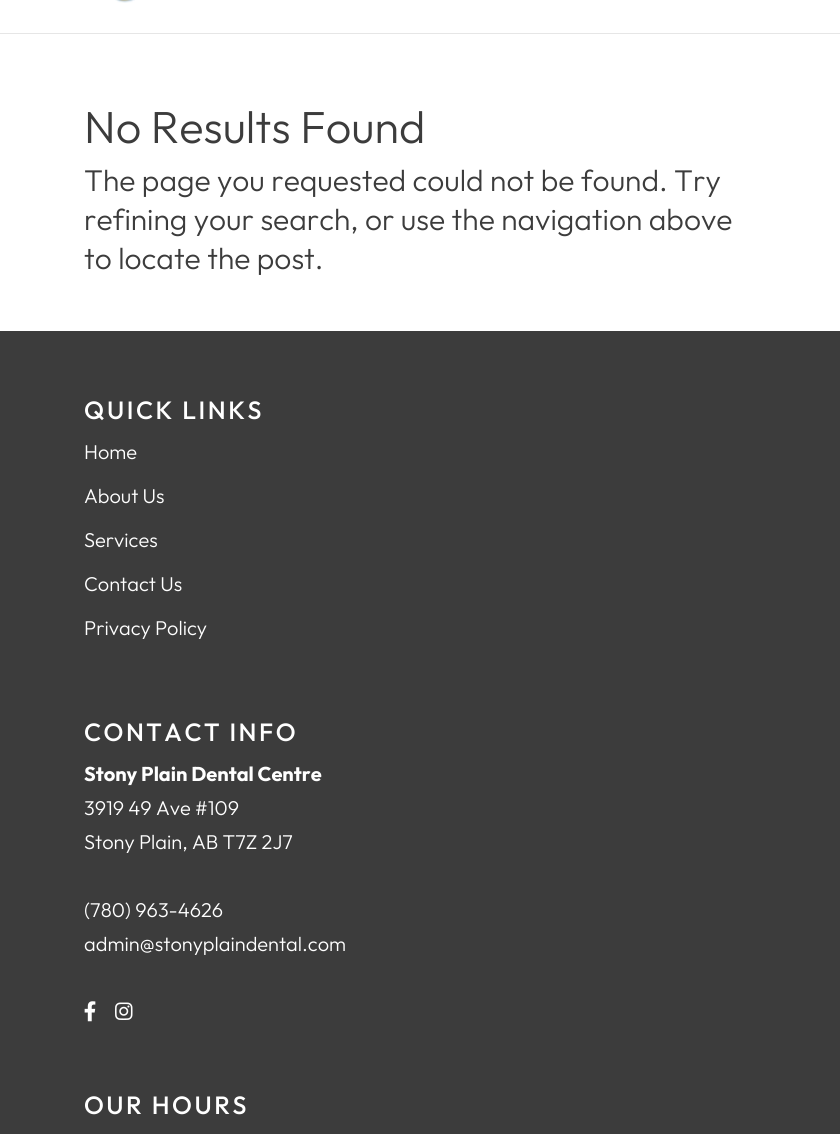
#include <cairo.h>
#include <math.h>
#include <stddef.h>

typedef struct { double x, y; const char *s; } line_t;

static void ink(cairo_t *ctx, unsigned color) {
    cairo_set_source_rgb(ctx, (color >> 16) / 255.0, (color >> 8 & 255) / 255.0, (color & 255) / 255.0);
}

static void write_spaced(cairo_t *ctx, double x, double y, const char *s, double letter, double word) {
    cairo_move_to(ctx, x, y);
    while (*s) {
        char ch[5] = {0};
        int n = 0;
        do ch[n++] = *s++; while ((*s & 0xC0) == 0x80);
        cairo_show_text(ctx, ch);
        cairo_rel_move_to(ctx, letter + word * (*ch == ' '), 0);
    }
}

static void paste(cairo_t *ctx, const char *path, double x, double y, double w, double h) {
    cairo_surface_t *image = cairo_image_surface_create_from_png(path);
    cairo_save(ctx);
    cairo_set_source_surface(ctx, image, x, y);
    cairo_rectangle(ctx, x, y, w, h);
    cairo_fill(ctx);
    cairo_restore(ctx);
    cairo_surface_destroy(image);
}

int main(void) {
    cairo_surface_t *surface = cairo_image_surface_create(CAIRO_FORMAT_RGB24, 840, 1134);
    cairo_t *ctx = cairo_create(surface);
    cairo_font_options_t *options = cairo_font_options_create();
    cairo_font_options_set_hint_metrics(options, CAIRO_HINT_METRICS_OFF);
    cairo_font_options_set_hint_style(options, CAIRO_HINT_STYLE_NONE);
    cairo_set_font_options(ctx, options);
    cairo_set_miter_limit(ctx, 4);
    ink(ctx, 0xFFFFFF);
    cairo_paint(ctx);
    ink(ctx, 0xE6E6E6);
    cairo_rectangle(ctx, 0, 33, 840, 1);
    cairo_fill(ctx);
    paste(ctx, "media/1.png", 115, 0, 20, 3);
    cairo_select_font_face(ctx, "Outfit Light", CAIRO_FONT_SLANT_NORMAL, CAIRO_FONT_WEIGHT_NORMAL);
    cairo_set_font_size(ctx, 45);
    ink(ctx, 0x3C3C3C);
    cairo_move_to(ctx, 84, 143);
    cairo_show_text(ctx, "No Results Found");
    cairo_set_font_size(ctx, 30);
    {
        static const line_t items[] = {
            {84, 191, "The page you requested could not be found. Try"},
            {84, 230, "refining your search, or use the navigation above"},
            {84, 269, "to locate the post."},
        };
        for (size_t i = 0; i < sizeof items / sizeof *items; i++) {
            cairo_move_to(ctx, items[i].x, items[i].y);
            cairo_show_text(ctx, items[i].s);
        }
    }
    cairo_rectangle(ctx, 0, 331, 840, 803);
    cairo_fill(ctx);
    cairo_select_font_face(ctx, "Outfit Medium", CAIRO_FONT_SLANT_NORMAL, CAIRO_FONT_WEIGHT_NORMAL);
    cairo_set_font_size(ctx, 25);
    ink(ctx, 0xFFFFFF);
    write_spaced(ctx, 84, 419, "QUICK LINKS", 2.5, 0);
    cairo_select_font_face(ctx, "Outfit Light", CAIRO_FONT_SLANT_NORMAL, CAIRO_FONT_WEIGHT_NORMAL);
    cairo_set_font_size(ctx, 20);
    {
        static const line_t items[] = {
            {84, 459, "Home"},
            {84, 503, "About Us"},
            {84, 547, "Services"},
            {84, 591, "Contact Us"},
            {84, 635, "Privacy Policy"},
        };
        for (size_t i = 0; i < sizeof items / sizeof *items; i++) {
            cairo_move_to(ctx, items[i].x, items[i].y);
            cairo_show_text(ctx, items[i].s);
        }
    }
    cairo_select_font_face(ctx, "Outfit Medium", CAIRO_FONT_SLANT_NORMAL, CAIRO_FONT_WEIGHT_NORMAL);
    cairo_set_font_size(ctx, 25);
    write_spaced(ctx, 84, 741, "CONTACT INFO", 2.5, 0);
    cairo_select_font_face(ctx, "Outfit", CAIRO_FONT_SLANT_NORMAL, CAIRO_FONT_WEIGHT_BOLD);
    cairo_set_font_size(ctx, 20);
    cairo_move_to(ctx, 84, 781);
    cairo_show_text(ctx, "Stony Plain Dental Centre");
    cairo_select_font_face(ctx, "Outfit Light", CAIRO_FONT_SLANT_NORMAL, CAIRO_FONT_WEIGHT_NORMAL);
    {
        static const line_t items[] = {
            {84, 815, "3919 49 Ave #109"},
            {84, 849, "Stony Plain, AB T7Z 2J7"},
            {84, 917, "(780) 963-4626"},
            {84, 951, "admin@stonyplaindental.com"},
        };
        for (size_t i = 0; i < sizeof items / sizeof *items; i++) {
            cairo_move_to(ctx, items[i].x, items[i].y);
            cairo_show_text(ctx, items[i].s);
        }
    }
    paste(ctx, "media/2.png", 84, 1001, 12, 21);
    paste(ctx, "media/3.png", 115, 1002, 18, 18);
    cairo_select_font_face(ctx, "Outfit Medium", CAIRO_FONT_SLANT_NORMAL, CAIRO_FONT_WEIGHT_NORMAL);
    cairo_set_font_size(ctx, 25);
    write_spaced(ctx, 84, 1114, "OUR HOURS", 2.5, 0);
    cairo_surface_write_to_png(surface, "image.png");
    cairo_font_options_destroy(options);
    cairo_destroy(ctx);
    cairo_surface_destroy(surface);
    return 0;
}
